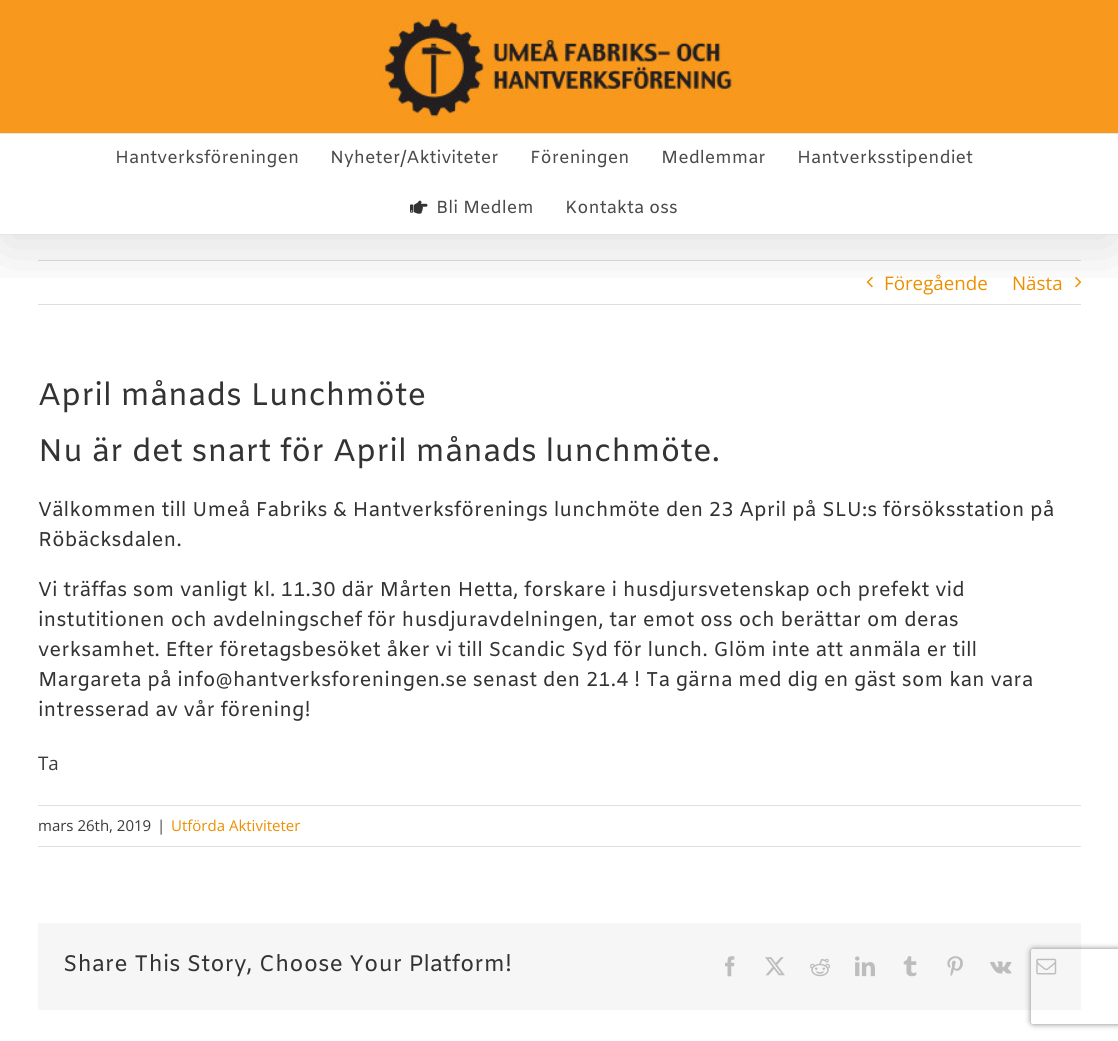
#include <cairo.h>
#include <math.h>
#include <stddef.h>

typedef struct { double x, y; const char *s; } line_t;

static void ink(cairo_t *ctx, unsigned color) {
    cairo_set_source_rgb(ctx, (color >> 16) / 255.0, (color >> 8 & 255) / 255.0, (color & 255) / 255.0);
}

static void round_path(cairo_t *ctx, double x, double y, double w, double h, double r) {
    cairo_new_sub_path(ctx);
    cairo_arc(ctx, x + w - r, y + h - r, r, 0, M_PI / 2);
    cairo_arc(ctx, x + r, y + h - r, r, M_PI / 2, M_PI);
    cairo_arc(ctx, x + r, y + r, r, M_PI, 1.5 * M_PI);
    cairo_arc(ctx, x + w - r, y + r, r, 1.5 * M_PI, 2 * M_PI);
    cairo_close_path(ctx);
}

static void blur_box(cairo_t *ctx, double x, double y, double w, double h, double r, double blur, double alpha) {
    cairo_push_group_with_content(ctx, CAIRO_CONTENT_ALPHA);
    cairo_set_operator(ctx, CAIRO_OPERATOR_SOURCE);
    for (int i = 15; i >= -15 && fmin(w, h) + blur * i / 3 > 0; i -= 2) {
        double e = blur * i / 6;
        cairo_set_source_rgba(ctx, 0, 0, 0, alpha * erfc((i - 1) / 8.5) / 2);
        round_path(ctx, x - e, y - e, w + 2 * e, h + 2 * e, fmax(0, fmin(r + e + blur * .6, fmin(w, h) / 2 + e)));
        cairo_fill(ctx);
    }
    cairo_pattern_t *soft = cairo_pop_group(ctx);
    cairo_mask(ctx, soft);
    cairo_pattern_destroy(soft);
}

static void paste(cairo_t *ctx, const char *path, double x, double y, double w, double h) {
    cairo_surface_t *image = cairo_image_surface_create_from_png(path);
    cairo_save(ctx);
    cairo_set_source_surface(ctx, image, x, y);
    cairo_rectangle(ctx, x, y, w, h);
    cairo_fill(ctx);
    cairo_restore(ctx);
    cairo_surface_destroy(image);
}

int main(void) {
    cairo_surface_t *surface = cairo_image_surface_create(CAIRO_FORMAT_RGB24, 1118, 1041);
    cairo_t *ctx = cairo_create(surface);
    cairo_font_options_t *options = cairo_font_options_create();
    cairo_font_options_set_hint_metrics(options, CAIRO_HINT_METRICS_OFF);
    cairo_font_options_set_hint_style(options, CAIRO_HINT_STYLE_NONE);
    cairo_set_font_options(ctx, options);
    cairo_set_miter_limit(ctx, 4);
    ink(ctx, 0xFFFFFF);
    cairo_paint(ctx);
    ink(ctx, 0xE0DEDE);
    cairo_rectangle(ctx, 38, 260, 1043, 1);
    cairo_fill(ctx);
    cairo_rectangle(ctx, 38, 304, 1043, 1);
    cairo_fill(ctx);
    paste(ctx, "media/3.png", 866, 277, 7, 11);
    paste(ctx, "media/4.png", 1075, 277, 7, 11);
    cairo_save(ctx);
    cairo_rectangle(ctx, 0, 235, 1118, 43);
    cairo_clip(ctx);
    ink(ctx, 0x000000);
    blur_box(ctx, 3, 15, 1113, 230, 0, 31, 0.14);
    cairo_restore(ctx);
    ink(ctx, 0xF8981D);
    cairo_rectangle(ctx, 0, 0, 1118, 133);
    cairo_fill(ctx);
    ink(ctx, 0xE5E5E5);
    cairo_rectangle(ctx, 0, 133, 1118, 1);
    cairo_fill(ctx);
    paste(ctx, "media/1.png", 382, 13, 351, 107);
    cairo_rectangle(ctx, 0, 234, 1118, 1);
    cairo_fill(ctx);
    cairo_select_font_face(ctx, "Amiko", CAIRO_FONT_SLANT_NORMAL, CAIRO_FONT_WEIGHT_NORMAL);
    cairo_set_font_size(ctx, 17.5);
    ink(ctx, 0x4A4A4B);
    {
        static const line_t items[] = {
            {115, 163, "Hantverksföreningen"},
            {330, 163, "Nyheter/Aktiviteter"},
            {530, 163, "Föreningen"},
            {661, 163, "Medlemmar"},
            {797, 163, "Hantverksstipendiet"},
        };
        for (size_t i = 0; i < sizeof items / sizeof *items; i++) {
            cairo_move_to(ctx, items[i].x, items[i].y);
            cairo_show_text(ctx, items[i].s);
        }
    }
    paste(ctx, "media/2.png", 410, 200, 18, 14);
    cairo_move_to(ctx, 436, 213);
    cairo_show_text(ctx, "Bli Medlem");
    cairo_move_to(ctx, 565, 213);
    cairo_show_text(ctx, "Kontakta oss");
    cairo_select_font_face(ctx, "Open Sans", CAIRO_FONT_SLANT_NORMAL, CAIRO_FONT_WEIGHT_NORMAL);
    cairo_set_font_size(ctx, 18.75);
    ink(ctx, 0xED8E00);
    cairo_move_to(ctx, 884, 290);
    cairo_show_text(ctx, "Föregående");
    cairo_move_to(ctx, 1012, 290);
    cairo_show_text(ctx, "Nästa");
    cairo_select_font_face(ctx, "Amiko", CAIRO_FONT_SLANT_NORMAL, CAIRO_FONT_WEIGHT_NORMAL);
    cairo_set_font_size(ctx, 31.25);
    ink(ctx, 0x333333);
    cairo_move_to(ctx, 38, 405);
    cairo_show_text(ctx, "April månads Lunchmöte");
    cairo_move_to(ctx, 38, 461);
    cairo_show_text(ctx, "Nu är det snart för April månads lunchmöte.");
    cairo_set_font_size(ctx, 20);
    {
        static const line_t items[] = {
            {38, 516, "Välkommen till Umeå Fabriks & Hantverksförenings lunchmöte den 23 April på SLU:s försöksstation på"},
            {38, 546, "Röbäcksdalen."},
            {38, 596, "Vi träffas som vanligt kl. 11.30 där Mårten Hetta, forskare i husdjursvetenskap och prefekt vid"},
            {38, 626, "instutitionen och avdelningschef för husdjuravdelningen, tar emot oss och berättar om deras"},
            {38, 656, "verksamhet. Efter företagsbesöket åker vi till Scandic Syd för lunch. Glöm inte att anmäla er till"},
            {38, 686, "Margareta på info@hantverksforeningen.se senast den 21.4 ! Ta gärna med dig en gäst som kan vara"},
            {38, 716, "intresserad av vår förening!"},
        };
        for (size_t i = 0; i < sizeof items / sizeof *items; i++) {
            cairo_move_to(ctx, items[i].x, items[i].y);
            cairo_show_text(ctx, items[i].s);
        }
    }
    cairo_select_font_face(ctx, "Open Sans", CAIRO_FONT_SLANT_NORMAL, CAIRO_FONT_WEIGHT_NORMAL);
    cairo_set_font_size(ctx, 18.75);
    ink(ctx, 0x3A3A3A);
    cairo_move_to(ctx, 38, 770);
    cairo_show_text(ctx, "Ta");
    ink(ctx, 0xE0DEDE);
    cairo_rectangle(ctx, 38, 805, 1043, 1);
    cairo_fill(ctx);
    cairo_rectangle(ctx, 38, 846, 1043, 1);
    cairo_fill(ctx);
    cairo_set_font_size(ctx, 15);
    ink(ctx, 0x3A3A3A);
    cairo_move_to(ctx, 38, 831);
    cairo_show_text(ctx, "mars 26th, 2019");
    cairo_move_to(ctx, 157, 831);
    cairo_show_text(ctx, "|");
    ink(ctx, 0xED8E00);
    cairo_move_to(ctx, 171, 831);
    cairo_show_text(ctx, "Utförda Aktiviteter");
    ink(ctx, 0xF6F6F6);
    cairo_rectangle(ctx, 38, 923, 1043, 87);
    cairo_fill(ctx);
    cairo_select_font_face(ctx, "Amiko", CAIRO_FONT_SLANT_NORMAL, CAIRO_FONT_WEIGHT_NORMAL);
    cairo_set_font_size(ctx, 22.5);
    ink(ctx, 0x333333);
    cairo_move_to(ctx, 63, 971);
    cairo_show_text(ctx, "Share This Story, Choose Your Platform!");
    paste(ctx, "media/5.png", 725, 956, 10, 21);
    paste(ctx, "media/6.png", 765, 957, 20, 19);
    paste(ctx, "media/7.png", 810, 958, 20, 19);
    paste(ctx, "media/8.png", 855, 956, 20, 21);
    paste(ctx, "media/9.png", 903, 956, 14, 21);
    paste(ctx, "media/10.png", 947, 956, 16, 20);
    paste(ctx, "media/11.png", 990, 961, 22, 13);
    paste(ctx, "media/12.png", 1036, 958, 21, 17);
    cairo_save(ctx);
    cairo_set_fill_rule(ctx, CAIRO_FILL_RULE_EVEN_ODD);
    cairo_new_path(ctx);
    cairo_move_to(ctx, 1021, 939);
    cairo_line_to(ctx, 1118, 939);
    cairo_line_to(ctx, 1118, 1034);
    cairo_line_to(ctx, 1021, 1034);
    cairo_close_path(ctx);
    cairo_move_to(ctx, 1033.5, 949);
    cairo_line_to(ctx, 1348.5, 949);
    cairo_curve_to(ctx, 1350, 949, 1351, 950, 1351, 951.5);
    cairo_line_to(ctx, 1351, 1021.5);
    cairo_curve_to(ctx, 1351, 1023, 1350, 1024, 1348.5, 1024);
    cairo_line_to(ctx, 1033.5, 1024);
    cairo_curve_to(ctx, 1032, 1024, 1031, 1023, 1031, 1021.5);
    cairo_line_to(ctx, 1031, 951.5);
    cairo_curve_to(ctx, 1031, 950, 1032, 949, 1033.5, 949);
    cairo_close_path(ctx);
    cairo_clip(ctx);
    ink(ctx, 0x808080);
    blur_box(ctx, 1031, 949, 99, 75, 2.5, 3, 1);
    cairo_restore(ctx);
    cairo_surface_write_to_png(surface, "image.png");
    cairo_font_options_destroy(options);
    cairo_destroy(ctx);
    cairo_surface_destroy(surface);
    return 0;
}
